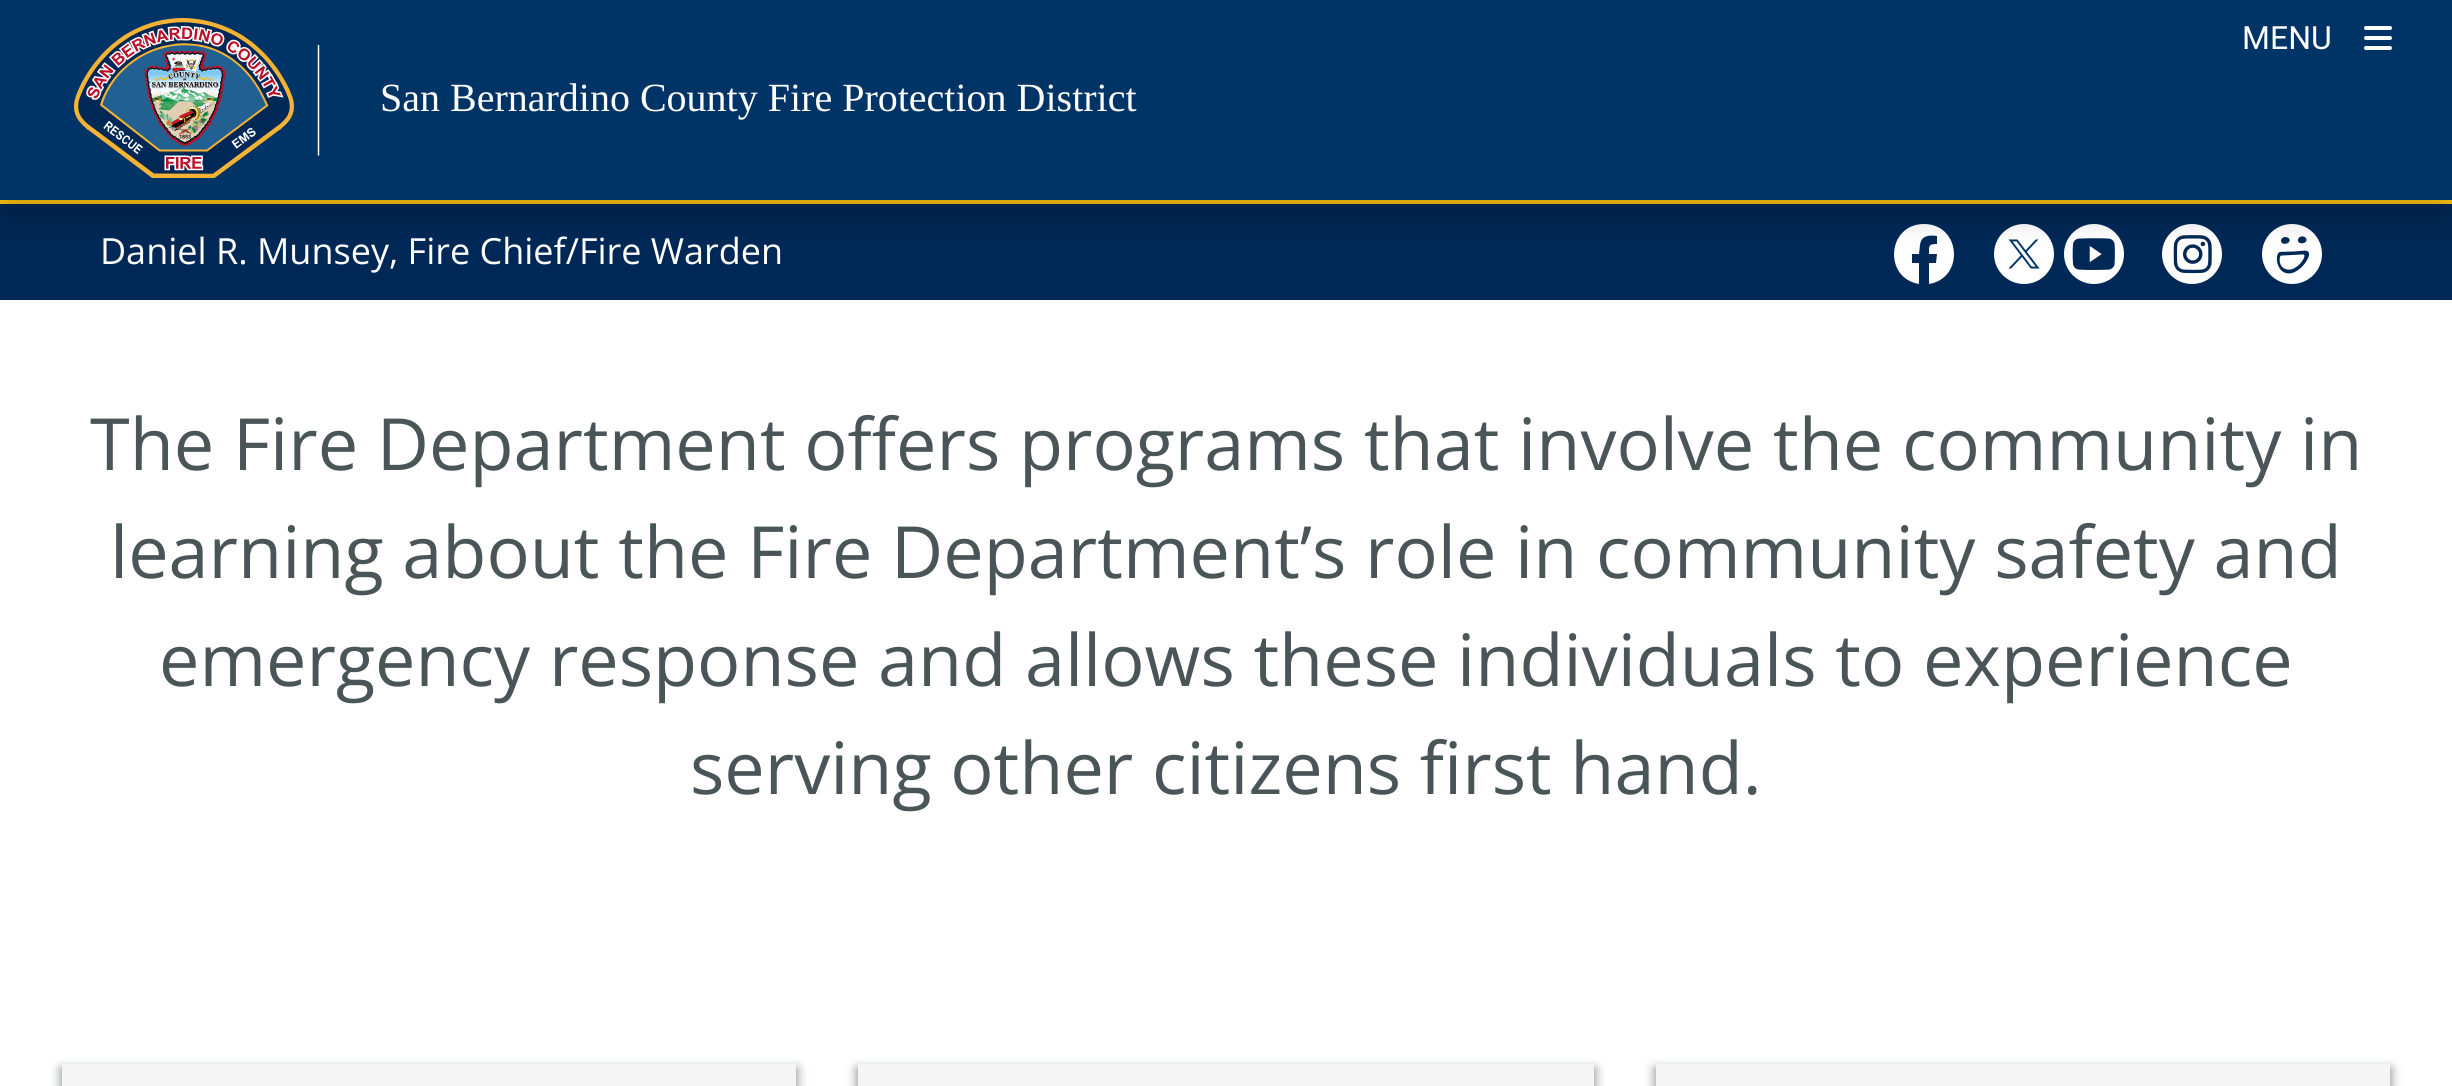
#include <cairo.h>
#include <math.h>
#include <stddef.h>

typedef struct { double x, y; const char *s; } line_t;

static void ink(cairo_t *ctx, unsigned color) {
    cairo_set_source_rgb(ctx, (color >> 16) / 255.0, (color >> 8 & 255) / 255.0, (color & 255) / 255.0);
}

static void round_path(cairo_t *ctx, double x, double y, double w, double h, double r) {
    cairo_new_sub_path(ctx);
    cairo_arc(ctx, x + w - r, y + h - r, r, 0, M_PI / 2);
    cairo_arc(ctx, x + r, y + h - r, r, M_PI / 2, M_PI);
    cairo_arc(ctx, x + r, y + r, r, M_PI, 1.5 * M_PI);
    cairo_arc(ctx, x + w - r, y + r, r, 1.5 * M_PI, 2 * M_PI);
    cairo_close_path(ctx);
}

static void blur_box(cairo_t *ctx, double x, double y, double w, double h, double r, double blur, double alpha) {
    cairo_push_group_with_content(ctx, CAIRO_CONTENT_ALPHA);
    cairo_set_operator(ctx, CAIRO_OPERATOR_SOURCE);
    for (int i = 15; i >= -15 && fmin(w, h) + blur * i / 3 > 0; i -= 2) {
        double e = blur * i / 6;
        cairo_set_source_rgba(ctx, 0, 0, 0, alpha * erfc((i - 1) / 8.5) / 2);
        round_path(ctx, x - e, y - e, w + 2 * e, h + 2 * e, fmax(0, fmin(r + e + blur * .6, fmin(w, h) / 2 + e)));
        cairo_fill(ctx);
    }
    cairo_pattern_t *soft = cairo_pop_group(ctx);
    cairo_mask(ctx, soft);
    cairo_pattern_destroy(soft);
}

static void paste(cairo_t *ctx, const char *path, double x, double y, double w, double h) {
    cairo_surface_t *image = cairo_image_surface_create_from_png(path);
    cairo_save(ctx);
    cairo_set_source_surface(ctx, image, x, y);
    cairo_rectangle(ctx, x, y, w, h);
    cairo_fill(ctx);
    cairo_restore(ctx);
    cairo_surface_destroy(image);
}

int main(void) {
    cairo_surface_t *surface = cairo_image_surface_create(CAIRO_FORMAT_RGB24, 2452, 1086);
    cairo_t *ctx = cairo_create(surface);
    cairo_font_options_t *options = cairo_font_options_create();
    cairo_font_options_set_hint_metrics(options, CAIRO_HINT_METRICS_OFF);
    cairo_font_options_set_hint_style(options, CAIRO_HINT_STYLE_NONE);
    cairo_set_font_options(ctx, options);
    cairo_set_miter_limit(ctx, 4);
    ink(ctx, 0xFFFFFF);
    cairo_paint(ctx);
    ink(ctx, 0x002856);
    cairo_rectangle(ctx, 0, 204, 2452, 96);
    cairo_fill(ctx);
    ink(ctx, 0xFFC410);
    cairo_rectangle(ctx, 0, 200, 2452, 4);
    cairo_fill(ctx);
    ink(ctx, 0xFFFFFF);
    cairo_new_path(ctx);
    cairo_move_to(ctx, 1924, 224);
    cairo_curve_to(ctx, 1887, 224, 1883, 278, 1919, 284);
    cairo_line_to(ctx, 1919, 263);
    cairo_line_to(ctx, 1912, 263);
    cairo_line_to(ctx, 1912, 254);
    cairo_line_to(ctx, 1919, 254);
    cairo_line_to(ctx, 1920, 245);
    cairo_curve_to(ctx, 1921, 235, 1930, 235, 1937, 236);
    cairo_line_to(ctx, 1937, 244);
    cairo_curve_to(ctx, 1928, 244, 1929, 246, 1929, 254);
    cairo_line_to(ctx, 1937, 254);
    cairo_line_to(ctx, 1936, 263);
    cairo_line_to(ctx, 1929, 263);
    cairo_line_to(ctx, 1929, 284);
    cairo_curve_to(ctx, 1965, 278, 1961, 224, 1924, 224);
    cairo_close_path(ctx);
    cairo_fill(ctx);
    paste(ctx, "media/3.png", 1994, 224, 60, 60);
    paste(ctx, "media/4.png", 2064, 224, 60, 60);
    paste(ctx, "media/5.png", 2162, 224, 60, 60);
    paste(ctx, "media/6.png", 2262, 224, 60, 60);
    ink(ctx, 0x000000);
    blur_box(ctx, 0, 20, 2452, 200, 0, 14.5, 0.16);
    ink(ctx, 0x003366);
    cairo_rectangle(ctx, 0, 0, 2452, 200);
    cairo_fill(ctx);
    cairo_select_font_face(ctx, "Roboto", CAIRO_FONT_SLANT_NORMAL, CAIRO_FONT_WEIGHT_NORMAL);
    cairo_set_font_size(ctx, 32);
    ink(ctx, 0xFFFFFF);
    cairo_move_to(ctx, 2242, 49);
    cairo_show_text(ctx, "MENU");
    paste(ctx, "media/1.png", 2364, 26, 28, 24);
    paste(ctx, "media/2.png", 74, 18, 220, 160);
    cairo_new_path(ctx);
    cairo_move_to(ctx, 318.5, 155.5);
    cairo_line_to(ctx, 318.5, 45);
    cairo_set_line_width(ctx, 1.5);
    cairo_stroke(ctx);
    cairo_select_font_face(ctx, "Liberation Serif", CAIRO_FONT_SLANT_NORMAL, CAIRO_FONT_WEIGHT_NORMAL);
    cairo_set_font_size(ctx, 40);
    cairo_move_to(ctx, 380, 111);
    cairo_show_text(ctx, "San Bernardino County Fire Protection District");
    cairo_select_font_face(ctx, "Open Sans", CAIRO_FONT_SLANT_NORMAL, CAIRO_FONT_WEIGHT_NORMAL);
    cairo_set_font_size(ctx, 72);
    ink(ctx, 0x4A5558);
    {
        static const line_t items[] = {
            {90, 470, "The Fire Department offers programs that involve the community in"},
            {110, 578, "learning about the Fire Department’s role in community safety and"},
            {159, 686, "emergency response and allows these individuals to experience"},
            {690, 794, "serving other citizens first hand."},
        };
        for (size_t i = 0; i < sizeof items / sizeof *items; i++) {
            cairo_move_to(ctx, items[i].x, items[i].y);
            cairo_show_text(ctx, items[i].s);
        }
    }
    ink(ctx, 0x9CA0A5);
    blur_box(ctx, 60, 1068, 738, 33, 0, 5, 1);
    ink(ctx, 0xF5F5F5);
    cairo_rectangle(ctx, 62, 1064, 734, 22);
    cairo_fill(ctx);
    ink(ctx, 0x9CA0A5);
    blur_box(ctx, 856, 1068, 740, 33, 0, 5, 1);
    ink(ctx, 0xF5F5F5);
    cairo_rectangle(ctx, 858, 1064, 736, 22);
    cairo_fill(ctx);
    ink(ctx, 0x9CA0A5);
    blur_box(ctx, 1654, 1068, 738, 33, 0, 5, 1);
    ink(ctx, 0xF5F5F5);
    cairo_rectangle(ctx, 1656, 1064, 734, 22);
    cairo_fill(ctx);
    cairo_set_font_size(ctx, 36);
    ink(ctx, 0xFFFFFF);
    cairo_move_to(ctx, 100, 264);
    cairo_show_text(ctx, "Daniel R. Munsey, Fire Chief/Fire Warden");
    cairo_surface_write_to_png(surface, "image.png");
    cairo_font_options_destroy(options);
    cairo_destroy(ctx);
    cairo_surface_destroy(surface);
    return 0;
}
